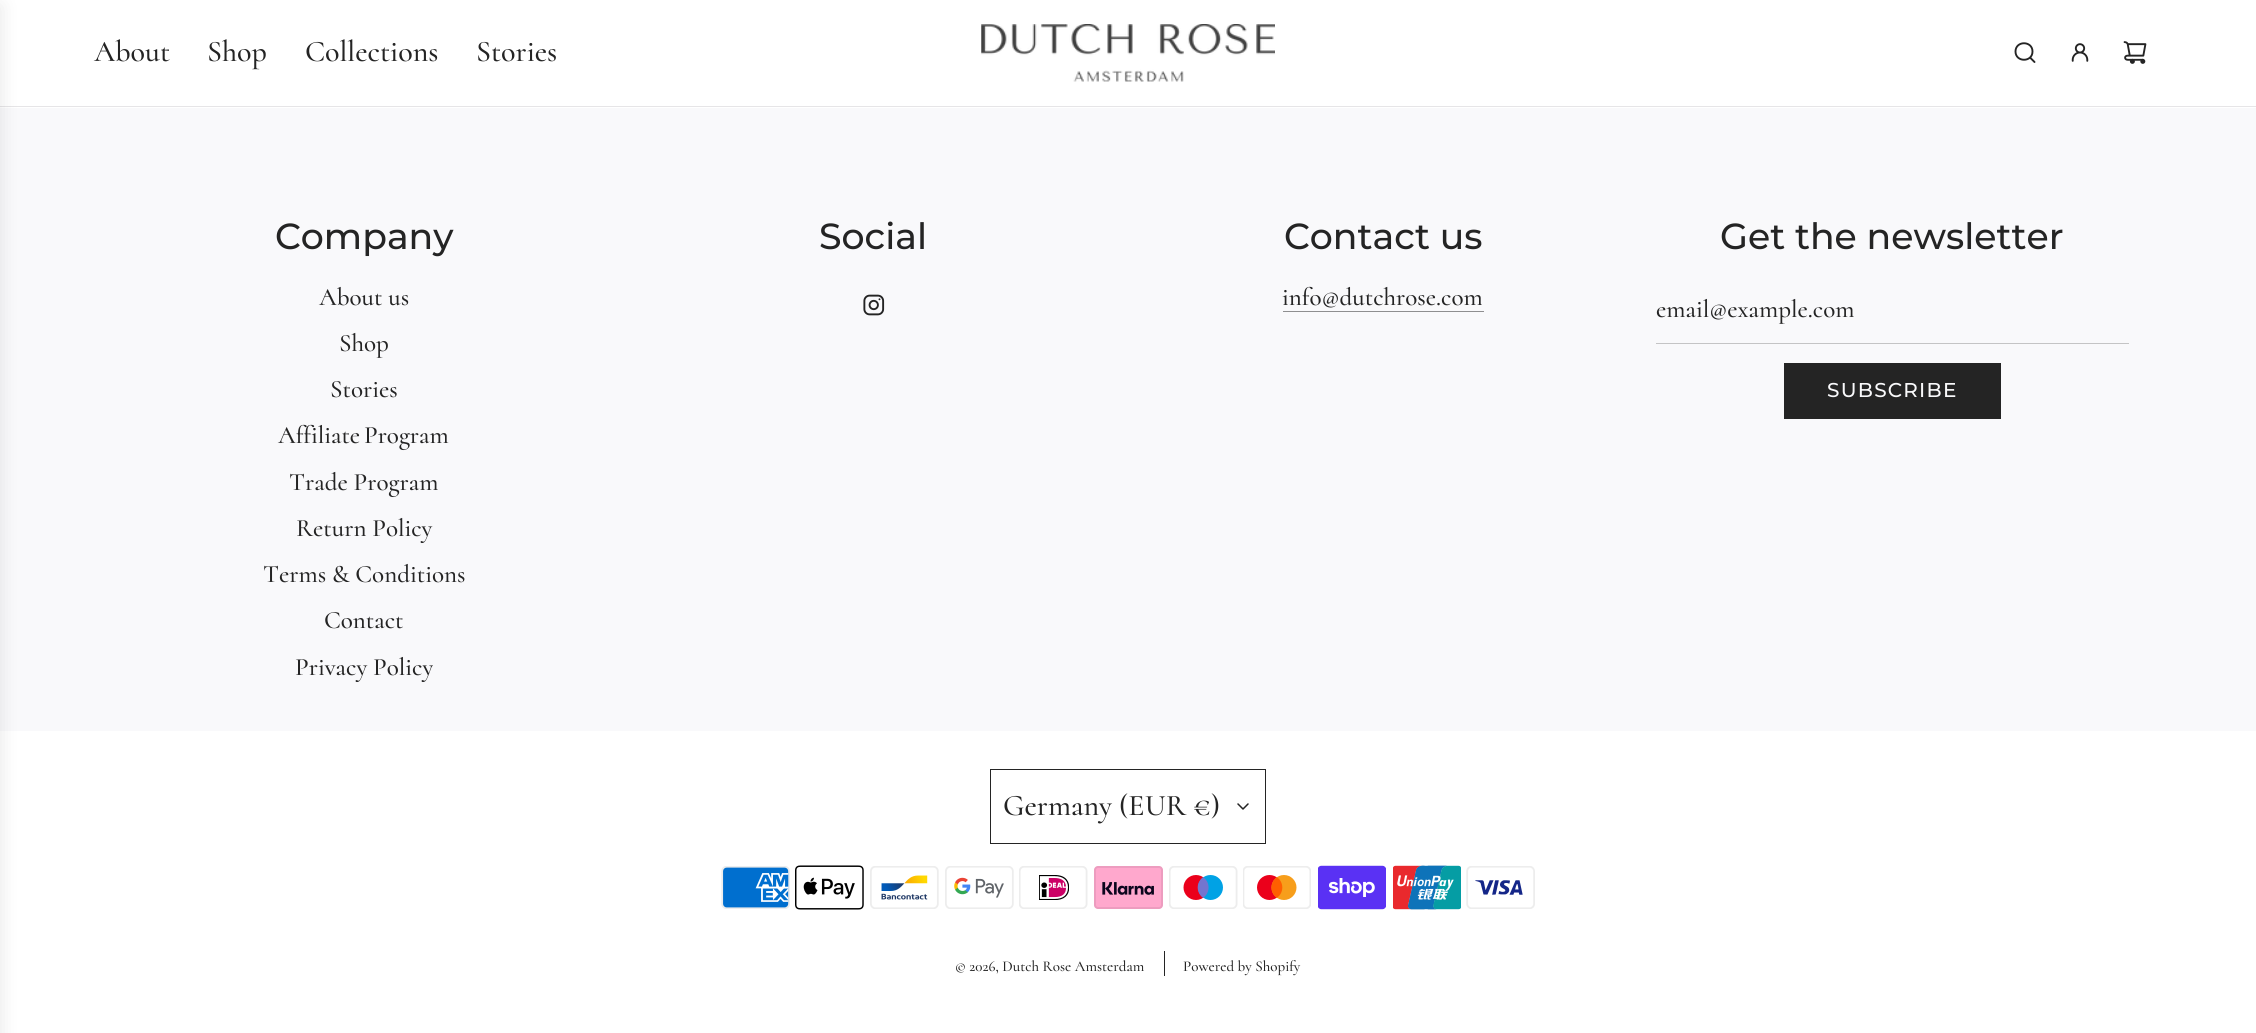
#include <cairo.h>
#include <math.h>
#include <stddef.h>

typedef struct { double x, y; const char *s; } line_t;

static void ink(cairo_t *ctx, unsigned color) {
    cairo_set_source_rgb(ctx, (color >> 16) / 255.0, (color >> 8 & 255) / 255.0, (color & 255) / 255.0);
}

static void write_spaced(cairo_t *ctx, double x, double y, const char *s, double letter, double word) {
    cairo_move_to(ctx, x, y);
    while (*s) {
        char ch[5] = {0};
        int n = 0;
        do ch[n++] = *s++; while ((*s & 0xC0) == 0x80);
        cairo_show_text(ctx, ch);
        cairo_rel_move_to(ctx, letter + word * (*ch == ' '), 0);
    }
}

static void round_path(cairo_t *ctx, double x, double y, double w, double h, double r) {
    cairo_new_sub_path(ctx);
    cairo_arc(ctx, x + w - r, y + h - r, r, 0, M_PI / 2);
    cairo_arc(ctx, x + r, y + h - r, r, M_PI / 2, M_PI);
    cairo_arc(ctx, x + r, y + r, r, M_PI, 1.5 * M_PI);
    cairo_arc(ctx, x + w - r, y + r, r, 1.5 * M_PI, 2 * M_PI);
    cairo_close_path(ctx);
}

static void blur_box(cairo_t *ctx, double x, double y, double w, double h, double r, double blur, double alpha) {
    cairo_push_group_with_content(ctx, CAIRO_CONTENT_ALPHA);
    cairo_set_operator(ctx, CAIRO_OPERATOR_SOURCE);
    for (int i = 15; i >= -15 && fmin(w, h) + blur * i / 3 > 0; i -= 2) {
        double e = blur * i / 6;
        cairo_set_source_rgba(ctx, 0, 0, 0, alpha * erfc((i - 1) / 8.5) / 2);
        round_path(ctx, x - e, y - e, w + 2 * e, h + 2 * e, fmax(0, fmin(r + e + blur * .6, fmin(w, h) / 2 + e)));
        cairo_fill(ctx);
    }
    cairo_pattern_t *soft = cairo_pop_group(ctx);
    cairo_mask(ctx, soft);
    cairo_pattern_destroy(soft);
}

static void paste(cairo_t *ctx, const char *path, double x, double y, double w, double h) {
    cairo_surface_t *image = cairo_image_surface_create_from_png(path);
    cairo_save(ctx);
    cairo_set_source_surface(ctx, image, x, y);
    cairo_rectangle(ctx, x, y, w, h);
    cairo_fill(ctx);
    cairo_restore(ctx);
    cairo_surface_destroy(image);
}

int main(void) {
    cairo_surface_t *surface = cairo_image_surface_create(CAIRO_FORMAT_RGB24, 2256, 1033);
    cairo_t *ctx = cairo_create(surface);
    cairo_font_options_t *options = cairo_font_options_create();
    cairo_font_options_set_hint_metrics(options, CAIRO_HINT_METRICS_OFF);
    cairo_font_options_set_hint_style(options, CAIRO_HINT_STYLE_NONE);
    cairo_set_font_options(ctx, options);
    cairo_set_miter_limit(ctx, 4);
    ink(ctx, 0xFFFFFF);
    cairo_paint(ctx);
    ink(ctx, 0xE6E5E7);
    cairo_rectangle(ctx, 0, 106, 2256, 1);
    cairo_fill(ctx);
    ink(ctx, 0xF9F9FB);
    cairo_rectangle(ctx, 0, 108, 2256, 623);
    cairo_fill(ctx);
    ink(ctx, 0x000000);
    blur_box(ctx, -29, 6, 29, 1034, 0, 9.5, 0.1);
    cairo_select_font_face(ctx, "Cormorant Medium", CAIRO_FONT_SLANT_NORMAL, CAIRO_FONT_WEIGHT_NORMAL);
    cairo_set_font_size(ctx, 30);
    ink(ctx, 0x242424);
    {
        static const line_t items[] = {
            {94, 61, "About"},
            {207, 61, "Shop"},
            {305, 61, "Collections"},
            {476, 61, "Stories"},
        };
        for (size_t i = 0; i < sizeof items / sizeof *items; i++) {
            cairo_move_to(ctx, items[i].x, items[i].y);
            cairo_show_text(ctx, items[i].s);
        }
    }
    paste(ctx, "media/1.png", 981, 24, 294, 58);
    cairo_new_path(ctx);
    cairo_move_to(ctx, 2030, 57.5);
    cairo_line_to(ctx, 2034.5, 62);
    cairo_move_to(ctx, 2015.5, 51.5);
    cairo_curve_to(ctx, 2015.5, 62.5, 2032.5, 62.5, 2032.5, 51.5);
    cairo_curve_to(ctx, 2032.5, 40.5, 2015.5, 40.5, 2015.5, 51.5);
    cairo_close_path(ctx);
    cairo_set_line_width(ctx, 1.9);
    cairo_set_line_cap(ctx, CAIRO_LINE_CAP_ROUND);
    cairo_set_line_join(ctx, CAIRO_LINE_JOIN_ROUND);
    cairo_stroke(ctx);
    paste(ctx, "media/2.png", 2071, 43, 18, 19);
    paste(ctx, "media/3.png", 2123, 41, 24, 23);
    cairo_select_font_face(ctx, "Montserrat Medium", CAIRO_FONT_SLANT_NORMAL, CAIRO_FONT_WEIGHT_NORMAL);
    cairo_set_font_size(ctx, 36.25);
    cairo_move_to(ctx, 275, 249);
    cairo_show_text(ctx, "Company");
    cairo_select_font_face(ctx, "Cormorant Medium", CAIRO_FONT_SLANT_NORMAL, CAIRO_FONT_WEIGHT_NORMAL);
    cairo_set_font_size(ctx, 25);
    {
        static const line_t items[] = {
            {319, 305, "About us"},
            {339, 351, "Shop"},
            {330, 397, "Stories"},
        };
        for (size_t i = 0; i < sizeof items / sizeof *items; i++) {
            cairo_move_to(ctx, items[i].x, items[i].y);
            cairo_show_text(ctx, items[i].s);
        }
    }
    write_spaced(ctx, 278, 443, "Affiliate Program", 0, -2);
    {
        static const line_t items[] = {
            {289, 490, "Trade Program"},
            {296, 536, "Return Policy"},
            {263, 582, "Terms & Conditions"},
            {324, 628, "Contact"},
            {295, 675, "Privacy Policy"},
        };
        for (size_t i = 0; i < sizeof items / sizeof *items; i++) {
            cairo_move_to(ctx, items[i].x, items[i].y);
            cairo_show_text(ctx, items[i].s);
        }
    }
    cairo_select_font_face(ctx, "Montserrat Medium", CAIRO_FONT_SLANT_NORMAL, CAIRO_FONT_WEIGHT_NORMAL);
    cairo_set_font_size(ctx, 36.25);
    cairo_move_to(ctx, 819, 249);
    cairo_show_text(ctx, "Social");
    paste(ctx, "media/4.png", 863, 294, 22, 22);
    cairo_move_to(ctx, 1284, 249);
    cairo_show_text(ctx, "Contact us");
    cairo_select_font_face(ctx, "Cormorant Medium", CAIRO_FONT_SLANT_NORMAL, CAIRO_FONT_WEIGHT_NORMAL);
    cairo_set_font_size(ctx, 25);
    cairo_move_to(ctx, 1282, 305);
    cairo_show_text(ctx, "info@dutchrose.com");
    ink(ctx, 0x8F8F90);
    cairo_rectangle(ctx, 1283, 311, 201, 1);
    cairo_fill(ctx);
    cairo_select_font_face(ctx, "Montserrat Medium", CAIRO_FONT_SLANT_NORMAL, CAIRO_FONT_WEIGHT_NORMAL);
    cairo_set_font_size(ctx, 36.25);
    ink(ctx, 0x242424);
    cairo_move_to(ctx, 1720, 249);
    cairo_show_text(ctx, "Get the newsletter");
    ink(ctx, 0xC4C4C5);
    cairo_rectangle(ctx, 1656, 343, 473, 1);
    cairo_fill(ctx);
    cairo_select_font_face(ctx, "Cormorant Medium", CAIRO_FONT_SLANT_NORMAL, CAIRO_FONT_WEIGHT_NORMAL);
    cairo_set_font_size(ctx, 25);
    ink(ctx, 0x242424);
    cairo_move_to(ctx, 1656, 317);
    cairo_show_text(ctx, "email@example.com");
    cairo_rectangle(ctx, 1784, 363, 217, 56);
    cairo_fill(ctx);
    cairo_select_font_face(ctx, "Montserrat Medium", CAIRO_FONT_SLANT_NORMAL, CAIRO_FONT_WEIGHT_NORMAL);
    cairo_set_font_size(ctx, 20);
    ink(ctx, 0xF9F9FB);
    write_spaced(ctx, 1827, 397, "SUBSCRIBE", 1.25, 0);
    cairo_rectangle(ctx, 990.5, 769.5, 275, 74);
    ink(ctx, 0x242424);
    cairo_set_line_width(ctx, 1);
    cairo_set_line_cap(ctx, CAIRO_LINE_CAP_BUTT);
    cairo_set_line_join(ctx, CAIRO_LINE_JOIN_MITER);
    cairo_stroke(ctx);
    cairo_select_font_face(ctx, "Cormorant Medium", CAIRO_FONT_SLANT_NORMAL, CAIRO_FONT_WEIGHT_NORMAL);
    cairo_set_font_size(ctx, 30);
    cairo_move_to(ctx, 1003, 815);
    cairo_show_text(ctx, "Germany (EUR €)");
    cairo_new_path(ctx);
    cairo_move_to(ctx, 1238, 804);
    cairo_line_to(ctx, 1243, 809);
    cairo_line_to(ctx, 1248, 804);
    cairo_set_line_width(ctx, 1.5);
    cairo_set_line_cap(ctx, CAIRO_LINE_CAP_ROUND);
    cairo_set_line_join(ctx, CAIRO_LINE_JOIN_ROUND);
    cairo_stroke(ctx);
    paste(ctx, "media/5.png", 721, 866, 69, 43);
    paste(ctx, "media/6.png", 795, 865, 69, 45);
    paste(ctx, "media/7.png", 870, 866, 69, 43);
    paste(ctx, "media/8.png", 945, 866, 69, 43);
    paste(ctx, "media/9.png", 1019, 866, 69, 43);
    paste(ctx, "media/10.png", 1094, 866, 69, 43);
    paste(ctx, "media/11.png", 1169, 866, 69, 43);
    paste(ctx, "media/12.png", 1243, 866, 68, 43);
    paste(ctx, "media/13.png", 1318, 865, 68, 45);
    paste(ctx, "media/14.png", 1393, 865, 68, 45);
    paste(ctx, "media/15.png", 1466, 866, 69, 43);
    cairo_set_font_size(ctx, 15);
    cairo_move_to(ctx, 955, 971);
    cairo_show_text(ctx, "© 2026, Dutch Rose Amsterdam");
    cairo_rectangle(ctx, 1164, 951, 1, 25);
    cairo_fill(ctx);
    cairo_move_to(ctx, 1183, 971);
    cairo_show_text(ctx, "Powered by Shopify");
    cairo_surface_write_to_png(surface, "image.png");
    cairo_font_options_destroy(options);
    cairo_destroy(ctx);
    cairo_surface_destroy(surface);
    return 0;
}
